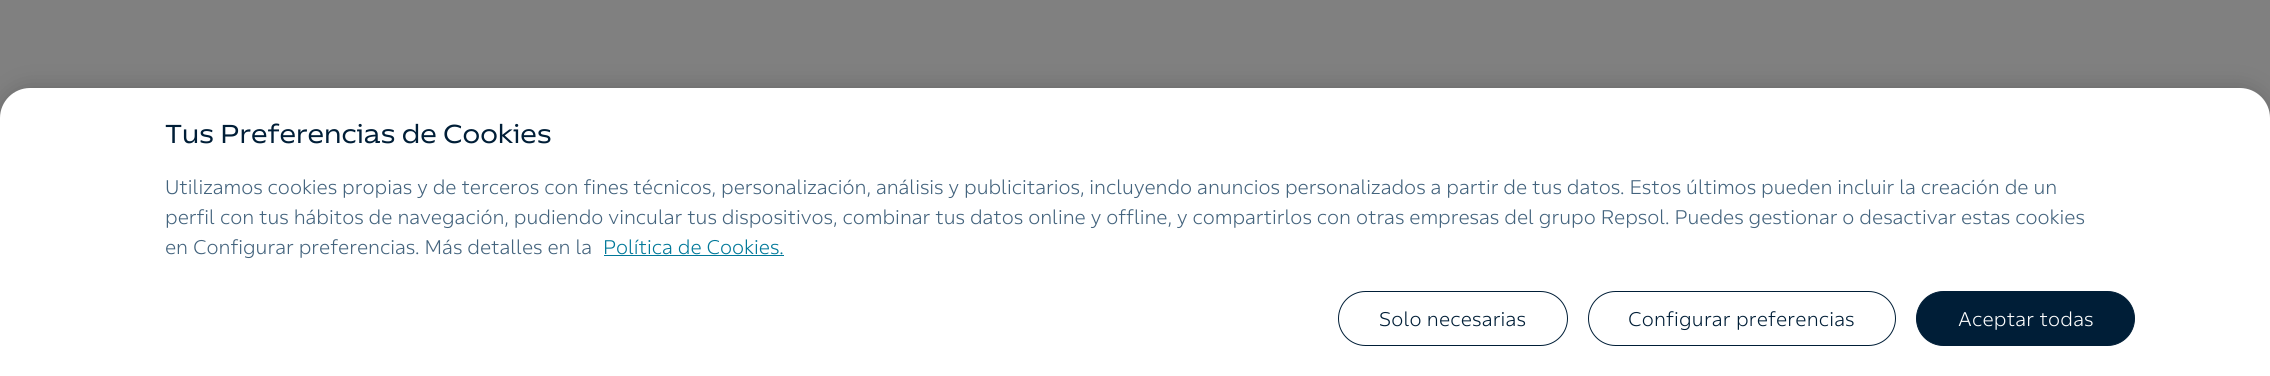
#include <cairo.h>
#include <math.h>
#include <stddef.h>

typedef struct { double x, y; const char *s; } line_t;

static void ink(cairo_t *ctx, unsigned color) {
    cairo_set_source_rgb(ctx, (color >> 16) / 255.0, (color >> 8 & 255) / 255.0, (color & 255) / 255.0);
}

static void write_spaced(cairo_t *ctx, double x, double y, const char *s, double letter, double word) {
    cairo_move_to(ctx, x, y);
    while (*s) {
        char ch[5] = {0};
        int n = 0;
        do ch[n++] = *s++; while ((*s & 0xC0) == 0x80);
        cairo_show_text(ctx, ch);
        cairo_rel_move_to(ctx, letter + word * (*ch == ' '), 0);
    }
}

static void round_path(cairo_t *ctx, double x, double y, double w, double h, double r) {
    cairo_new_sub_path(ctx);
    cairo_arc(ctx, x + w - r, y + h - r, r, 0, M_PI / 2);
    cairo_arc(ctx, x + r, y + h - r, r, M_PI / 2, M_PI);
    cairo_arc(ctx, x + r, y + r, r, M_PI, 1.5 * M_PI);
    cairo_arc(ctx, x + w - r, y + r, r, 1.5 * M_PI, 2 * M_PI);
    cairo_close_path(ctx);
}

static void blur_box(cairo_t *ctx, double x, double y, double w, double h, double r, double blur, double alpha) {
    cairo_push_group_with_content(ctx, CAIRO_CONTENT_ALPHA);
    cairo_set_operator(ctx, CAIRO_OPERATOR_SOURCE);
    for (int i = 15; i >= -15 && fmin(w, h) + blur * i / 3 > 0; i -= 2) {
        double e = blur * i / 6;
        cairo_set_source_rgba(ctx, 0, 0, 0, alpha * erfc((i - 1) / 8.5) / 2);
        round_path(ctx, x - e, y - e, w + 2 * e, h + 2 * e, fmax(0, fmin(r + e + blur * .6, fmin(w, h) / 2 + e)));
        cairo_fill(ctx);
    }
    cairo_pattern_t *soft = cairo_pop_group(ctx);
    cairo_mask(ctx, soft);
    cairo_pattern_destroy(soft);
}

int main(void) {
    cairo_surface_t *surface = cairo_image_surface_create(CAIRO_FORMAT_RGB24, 2270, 376);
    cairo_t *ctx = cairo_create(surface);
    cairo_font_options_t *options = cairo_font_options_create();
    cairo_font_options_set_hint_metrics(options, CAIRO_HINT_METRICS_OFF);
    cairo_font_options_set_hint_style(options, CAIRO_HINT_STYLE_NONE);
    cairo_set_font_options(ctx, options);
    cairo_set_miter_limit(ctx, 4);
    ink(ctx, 0x808080);
    cairo_paint(ctx);
    ink(ctx, 0x000000);
    blur_box(ctx, 0, 88, 2270, 288, 30, 11, 0.2);
    ink(ctx, 0xFFFFFF);
    cairo_new_path(ctx);
    cairo_move_to(ctx, 30, 88);
    cairo_line_to(ctx, 2240, 88);
    cairo_curve_to(ctx, 2256.5, 88, 2270, 101.5, 2270, 118);
    cairo_line_to(ctx, 2270, 376);
    cairo_line_to(ctx, 0, 376);
    cairo_line_to(ctx, 0, 118);
    cairo_curve_to(ctx, 0, 101.5, 13.5, 88, 30, 88);
    cairo_close_path(ctx);
    cairo_fill(ctx);
    cairo_select_font_face(ctx, "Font", CAIRO_FONT_SLANT_NORMAL, CAIRO_FONT_WEIGHT_NORMAL);
    cairo_set_font_size(ctx, 26.25);
    ink(ctx, 0x001E37);
    cairo_move_to(ctx, 165, 143);
    cairo_show_text(ctx, "Tus Preferencias de Cookies");
    cairo_select_font_face(ctx, "Font Light", CAIRO_FONT_SLANT_NORMAL, CAIRO_FONT_WEIGHT_NORMAL);
    cairo_set_font_size(ctx, 20);
    ink(ctx, 0x43637D);
    {
        static const line_t items[] = {
            {165, 194, "Utilizamos cookies propias y de terceros con fines técnicos, personalización, análisis y publicitarios, incluyendo anuncios personalizados a partir de tus datos. Estos últimos pueden incluir la creación de un"},
            {165, 224, "perfil con tus hábitos de navegación, pudiendo vincular tus dispositivos, combinar tus datos online y offline, y compartirlos con otras empresas del grupo Repsol. Puedes gestionar o desactivar estas cookies"},
            {165, 254, "en Configurar preferencias. Más detalles en la"},
        };
        for (size_t i = 0; i < sizeof items / sizeof *items; i++) {
            cairo_move_to(ctx, items[i].x, items[i].y);
            cairo_show_text(ctx, items[i].s);
        }
    }
    ink(ctx, 0x007899);
    cairo_move_to(ctx, 603, 254);
    cairo_show_text(ctx, "Política de Cookies.");
    cairo_rectangle(ctx, 604, 255, 180, 1);
    cairo_fill(ctx);
    round_path(ctx, 1338.5, 291.5, 229, 54, 27);
    ink(ctx, 0x001E37);
    cairo_set_line_width(ctx, 1);
    cairo_stroke(ctx);
    write_spaced(ctx, 1379, 326, "Solo necesarias", 0.2, 0);
    round_path(ctx, 1588.5, 291.5, 307, 54, 27);
    cairo_stroke(ctx);
    write_spaced(ctx, 1628, 326, "Configurar preferencias", 0.2, 0);
    round_path(ctx, 1916.5, 291.5, 218, 54, 27);
    cairo_fill_preserve(ctx);
    cairo_stroke(ctx);
    ink(ctx, 0xFFFFFF);
    write_spaced(ctx, 1958, 326, "Aceptar todas", 0.2, 0);
    cairo_surface_write_to_png(surface, "image.png");
    cairo_font_options_destroy(options);
    cairo_destroy(ctx);
    cairo_surface_destroy(surface);
    return 0;
}
